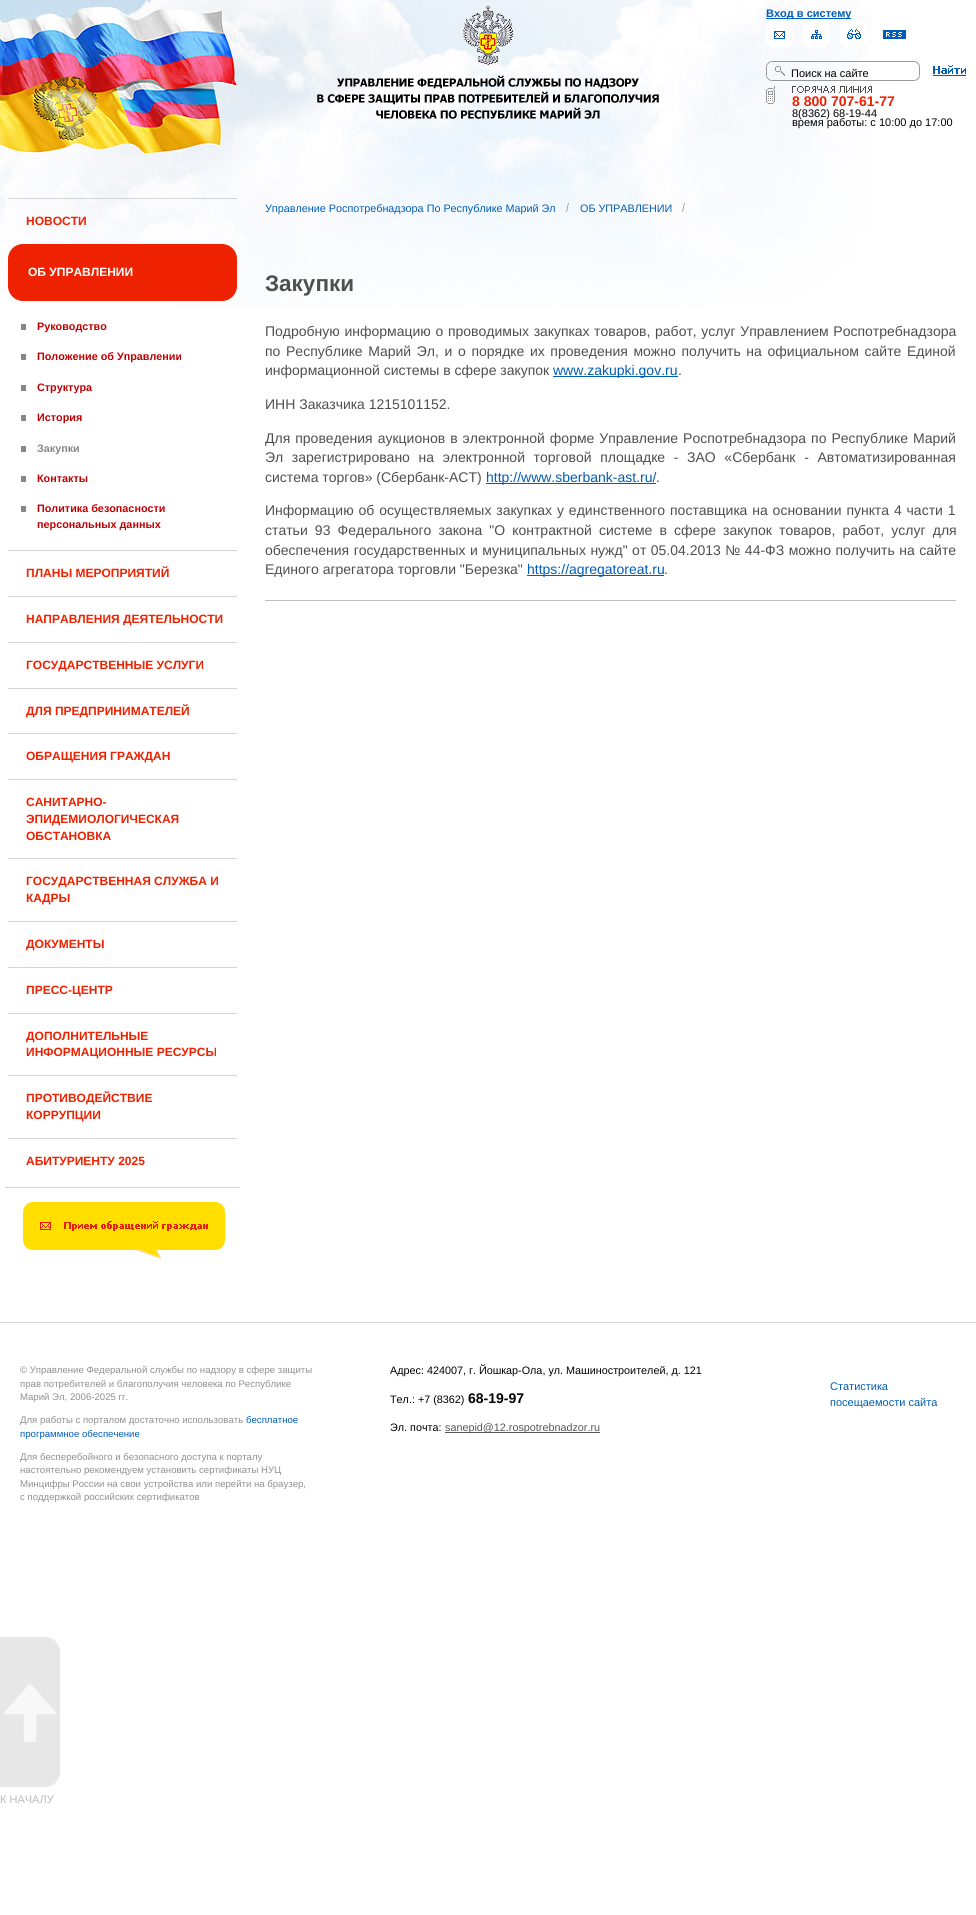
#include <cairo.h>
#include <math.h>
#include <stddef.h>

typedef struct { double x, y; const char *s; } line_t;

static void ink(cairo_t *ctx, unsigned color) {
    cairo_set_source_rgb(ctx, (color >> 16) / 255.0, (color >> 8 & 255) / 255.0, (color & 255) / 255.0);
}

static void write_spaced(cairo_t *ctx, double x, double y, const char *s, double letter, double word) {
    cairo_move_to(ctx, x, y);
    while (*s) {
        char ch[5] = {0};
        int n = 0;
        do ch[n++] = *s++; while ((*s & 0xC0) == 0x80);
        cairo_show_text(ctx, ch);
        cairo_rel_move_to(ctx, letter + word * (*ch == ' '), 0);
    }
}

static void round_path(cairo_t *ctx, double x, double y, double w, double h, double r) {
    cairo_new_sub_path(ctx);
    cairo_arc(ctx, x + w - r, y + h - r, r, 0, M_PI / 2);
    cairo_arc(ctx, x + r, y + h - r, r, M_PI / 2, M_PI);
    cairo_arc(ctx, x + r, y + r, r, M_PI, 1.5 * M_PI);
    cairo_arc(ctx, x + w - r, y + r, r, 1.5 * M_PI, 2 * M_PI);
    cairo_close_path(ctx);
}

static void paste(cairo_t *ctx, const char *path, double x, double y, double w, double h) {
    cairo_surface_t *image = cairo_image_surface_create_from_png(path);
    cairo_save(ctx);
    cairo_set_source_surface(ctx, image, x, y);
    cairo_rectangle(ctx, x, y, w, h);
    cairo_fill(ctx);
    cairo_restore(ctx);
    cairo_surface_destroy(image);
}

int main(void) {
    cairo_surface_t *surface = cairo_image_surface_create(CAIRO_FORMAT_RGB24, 976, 1915);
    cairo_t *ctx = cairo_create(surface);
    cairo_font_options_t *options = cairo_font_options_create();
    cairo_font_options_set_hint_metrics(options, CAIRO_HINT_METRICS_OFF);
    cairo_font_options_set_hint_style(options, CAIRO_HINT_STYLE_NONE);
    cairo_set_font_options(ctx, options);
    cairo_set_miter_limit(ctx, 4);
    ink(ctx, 0xFFFFFF);
    cairo_paint(ctx);
    paste(ctx, "media/1.png", 0, 0, 872, 308);
    paste(ctx, "media/2.png", 317, 6, 342, 113);
    ink(ctx, 0x005DB7);
    cairo_rectangle(ctx, 766, 18, 85, 1);
    cairo_fill(ctx);
    cairo_select_font_face(ctx, "Liberation Sans", CAIRO_FONT_SLANT_NORMAL, CAIRO_FONT_WEIGHT_BOLD);
    cairo_set_font_size(ctx, 11);
    cairo_move_to(ctx, 766, 17);
    cairo_show_text(ctx, "Вход в систему");
    paste(ctx, "media/3.png", 766, 21, 27, 27);
    paste(ctx, "media/4.png", 803, 21, 27, 27);
    paste(ctx, "media/5.png", 840, 21, 27, 27);
    paste(ctx, "media/6.png", 883, 30, 23, 9);
    paste(ctx, "media/7.png", 766, 61, 154, 20);
    cairo_select_font_face(ctx, "Liberation Sans", CAIRO_FONT_SLANT_NORMAL, CAIRO_FONT_WEIGHT_NORMAL);
    ink(ctx, 0x000000);
    cairo_move_to(ctx, 791, 77);
    cairo_show_text(ctx, "Поиск на сайте");
    paste(ctx, "media/8.png", 933, 65, 33, 11);
    paste(ctx, "media/9.png", 766, 86, 9, 18);
    paste(ctx, "media/10.png", 792, 86, 80, 7);
    cairo_select_font_face(ctx, "Liberation Sans", CAIRO_FONT_SLANT_NORMAL, CAIRO_FONT_WEIGHT_BOLD);
    cairo_set_font_size(ctx, 14);
    ink(ctx, 0xEE2200);
    cairo_move_to(ctx, 792, 106);
    cairo_show_text(ctx, "8 800 707-61-77");
    cairo_select_font_face(ctx, "Liberation Sans", CAIRO_FONT_SLANT_NORMAL, CAIRO_FONT_WEIGHT_NORMAL);
    cairo_set_font_size(ctx, 11);
    ink(ctx, 0x000000);
    cairo_move_to(ctx, 792, 117);
    cairo_show_text(ctx, "8(8362) 68-19-44");
    cairo_move_to(ctx, 792, 126);
    cairo_show_text(ctx, "время работы: с 10:00 до 17:00");
    ink(ctx, 0xD4D4D4);
    cairo_rectangle(ctx, 8, 198, 229, 1);
    cairo_fill(ctx);
    cairo_select_font_face(ctx, "Liberation Sans", CAIRO_FONT_SLANT_NORMAL, CAIRO_FONT_WEIGHT_BOLD);
    cairo_set_font_size(ctx, 12);
    ink(ctx, 0xEE2200);
    cairo_move_to(ctx, 26, 225);
    cairo_show_text(ctx, "НОВОСТИ");
    round_path(ctx, 8, 244, 229, 57, 15);
    cairo_fill(ctx);
    ink(ctx, 0xFFFFFF);
    cairo_move_to(ctx, 28, 276);
    cairo_show_text(ctx, "ОБ УПРАВЛЕНИИ");
    ink(ctx, 0x898686);
    cairo_rectangle(ctx, 21, 324, 5, 6);
    cairo_fill(ctx);
    cairo_set_font_size(ctx, 10.8);
    ink(ctx, 0xBD0001);
    cairo_move_to(ctx, 37, 330);
    cairo_show_text(ctx, "Руководство");
    ink(ctx, 0x898686);
    cairo_rectangle(ctx, 21, 354, 5, 6);
    cairo_fill(ctx);
    ink(ctx, 0xBD0001);
    cairo_move_to(ctx, 37, 360);
    cairo_show_text(ctx, "Положение об Управлении");
    ink(ctx, 0x898686);
    cairo_rectangle(ctx, 21, 385, 5, 6);
    cairo_fill(ctx);
    ink(ctx, 0xBD0001);
    cairo_move_to(ctx, 37, 391);
    cairo_show_text(ctx, "Структура");
    ink(ctx, 0x898686);
    cairo_rectangle(ctx, 21, 415, 5, 6);
    cairo_fill(ctx);
    ink(ctx, 0xBD0001);
    cairo_move_to(ctx, 37, 421);
    cairo_show_text(ctx, "История");
    ink(ctx, 0x898686);
    cairo_rectangle(ctx, 21, 446, 5, 6);
    cairo_fill(ctx);
    cairo_move_to(ctx, 37, 452);
    cairo_show_text(ctx, "Закупки");
    cairo_rectangle(ctx, 21, 476, 5, 6);
    cairo_fill(ctx);
    ink(ctx, 0xBD0001);
    cairo_move_to(ctx, 37, 482);
    cairo_show_text(ctx, "Контакты");
    ink(ctx, 0x898686);
    cairo_rectangle(ctx, 21, 506, 5, 6);
    cairo_fill(ctx);
    ink(ctx, 0xBD0001);
    cairo_move_to(ctx, 37, 512);
    cairo_show_text(ctx, "Политика безопасности");
    cairo_move_to(ctx, 37, 528);
    cairo_show_text(ctx, "персональных данных");
    ink(ctx, 0xD4D4D4);
    cairo_rectangle(ctx, 8, 550, 229, 1);
    cairo_fill(ctx);
    cairo_set_font_size(ctx, 12);
    ink(ctx, 0xEE2200);
    cairo_move_to(ctx, 26, 577);
    cairo_show_text(ctx, "ПЛАНЫ МЕРОПРИЯТИЙ");
    ink(ctx, 0xD4D4D4);
    cairo_rectangle(ctx, 8, 596, 229, 1);
    cairo_fill(ctx);
    ink(ctx, 0xEE2200);
    cairo_move_to(ctx, 26, 623);
    cairo_show_text(ctx, "НАПРАВЛЕНИЯ ДЕЯТЕЛЬНОСТИ");
    ink(ctx, 0xD4D4D4);
    cairo_rectangle(ctx, 8, 642, 229, 1);
    cairo_fill(ctx);
    ink(ctx, 0xEE2200);
    cairo_move_to(ctx, 26, 669);
    cairo_show_text(ctx, "ГОСУДАРСТВЕННЫЕ УСЛУГИ");
    ink(ctx, 0xD4D4D4);
    cairo_rectangle(ctx, 8, 688, 229, 1);
    cairo_fill(ctx);
    ink(ctx, 0xEE2200);
    cairo_move_to(ctx, 26, 715);
    cairo_show_text(ctx, "ДЛЯ ПРЕДПРИНИМАТЕЛЕЙ");
    ink(ctx, 0xD4D4D4);
    cairo_rectangle(ctx, 8, 733, 229, 1);
    cairo_fill(ctx);
    ink(ctx, 0xEE2200);
    cairo_move_to(ctx, 26, 760);
    cairo_show_text(ctx, "ОБРАЩЕНИЯ ГРАЖДАН");
    ink(ctx, 0xD4D4D4);
    cairo_rectangle(ctx, 8, 779, 229, 1);
    cairo_fill(ctx);
    ink(ctx, 0xEE2200);
    {
        static const line_t items[] = {
            {26, 806, "САНИТАРНО-"},
            {26, 823, "ЭПИДЕМИОЛОГИЧЕСКАЯ"},
            {26, 840, "ОБСТАНОВКА"},
        };
        for (size_t i = 0; i < sizeof items / sizeof *items; i++) {
            cairo_move_to(ctx, items[i].x, items[i].y);
            cairo_show_text(ctx, items[i].s);
        }
    }
    ink(ctx, 0xD4D4D4);
    cairo_rectangle(ctx, 8, 858, 229, 1);
    cairo_fill(ctx);
    ink(ctx, 0xEE2200);
    cairo_move_to(ctx, 26, 885);
    cairo_show_text(ctx, "ГОСУДАРСТВЕННАЯ СЛУЖБА И");
    cairo_move_to(ctx, 26, 902);
    cairo_show_text(ctx, "КАДРЫ");
    ink(ctx, 0xD4D4D4);
    cairo_rectangle(ctx, 8, 921, 229, 1);
    cairo_fill(ctx);
    ink(ctx, 0xEE2200);
    cairo_move_to(ctx, 26, 948);
    cairo_show_text(ctx, "ДОКУМЕНТЫ");
    ink(ctx, 0xD4D4D4);
    cairo_rectangle(ctx, 8, 967, 229, 1);
    cairo_fill(ctx);
    ink(ctx, 0xEE2200);
    cairo_move_to(ctx, 26, 994);
    cairo_show_text(ctx, "ПРЕСС-ЦЕНТР");
    ink(ctx, 0xD4D4D4);
    cairo_rectangle(ctx, 8, 1013, 229, 1);
    cairo_fill(ctx);
    ink(ctx, 0xEE2200);
    cairo_move_to(ctx, 26, 1040);
    cairo_show_text(ctx, "ДОПОЛНИТЕЛЬНЫЕ");
    cairo_move_to(ctx, 26, 1056);
    cairo_show_text(ctx, "ИНФОРМАЦИОННЫЕ РЕСУРСЫ");
    ink(ctx, 0xD4D4D4);
    cairo_rectangle(ctx, 8, 1075, 229, 1);
    cairo_fill(ctx);
    ink(ctx, 0xEE2200);
    cairo_move_to(ctx, 26, 1102);
    cairo_show_text(ctx, "ПРОТИВОДЕЙСТВИЕ");
    cairo_move_to(ctx, 26, 1119);
    cairo_show_text(ctx, "КОРРУПЦИИ");
    ink(ctx, 0xD4D4D4);
    cairo_rectangle(ctx, 8, 1138, 229, 1);
    cairo_fill(ctx);
    ink(ctx, 0xEE2200);
    cairo_move_to(ctx, 26, 1165);
    cairo_show_text(ctx, "АБИТУРИЕНТУ 2025");
    ink(ctx, 0xD4D4D4);
    cairo_rectangle(ctx, 5, 1187, 235, 1);
    cairo_fill(ctx);
    paste(ctx, "media/11.png", 23, 1202, 202, 57);
    paste(ctx, "media/12.png", 566, 203, 3, 9);
    cairo_select_font_face(ctx, "Liberation Sans", CAIRO_FONT_SLANT_NORMAL, CAIRO_FONT_WEIGHT_NORMAL);
    cairo_set_font_size(ctx, 10.8);
    ink(ctx, 0x005DB7);
    cairo_move_to(ctx, 265, 212);
    cairo_show_text(ctx, "Управление Роспотребнадзора По Республике Марий Эл");
    paste(ctx, "media/13.png", 682, 203, 3, 9);
    cairo_move_to(ctx, 580, 212);
    cairo_show_text(ctx, "ОБ УПРАВЛЕНИИ");
    cairo_select_font_face(ctx, "Liberation Sans", CAIRO_FONT_SLANT_NORMAL, CAIRO_FONT_WEIGHT_BOLD);
    cairo_set_font_size(ctx, 22.5);
    ink(ctx, 0x4F4F4F);
    cairo_move_to(ctx, 265, 291);
    cairo_show_text(ctx, "Закупки");
    cairo_select_font_face(ctx, "Liberation Sans", CAIRO_FONT_SLANT_NORMAL, CAIRO_FONT_WEIGHT_NORMAL);
    cairo_set_font_size(ctx, 14);
    write_spaced(ctx, 265, 336, "Подробную информацию о проводимых закупках товаров, работ, услуг Управлением Роспотребнадзора", 0, 0.75);
    write_spaced(ctx, 265, 356, "по Республике Марий Эл, и о порядке их проведения можно получить на официальном сайте Единой", 0, 1.75);
    cairo_move_to(ctx, 265, 375);
    cairo_show_text(ctx, "информационной системы в сфере закупок");
    ink(ctx, 0x005DB7);
    cairo_rectangle(ctx, 553, 376, 125, 1);
    cairo_fill(ctx);
    cairo_move_to(ctx, 553, 375);
    cairo_show_text(ctx, "www.zakupki.gov.ru");
    ink(ctx, 0x4F4F4F);
    cairo_move_to(ctx, 678, 375);
    cairo_show_text(ctx, ".");
    cairo_move_to(ctx, 265, 409);
    cairo_show_text(ctx, "ИНН Заказчика 1215101152.");
    write_spaced(ctx, 265, 443, "Для проведения аукционов в электронной форме Управление Роспотребнадзора по Республике Марий", 0, 1.1);
    write_spaced(ctx, 265, 462, "Эл зарегистрировано на электронной торговой площадке - ЗАО «Сбербанк - Автоматизированная", 0, 4.75);
    cairo_move_to(ctx, 265, 482);
    cairo_show_text(ctx, "система торгов» (Сбербанк-АСТ)");
    ink(ctx, 0x005DB7);
    cairo_rectangle(ctx, 486, 483, 170, 1);
    cairo_fill(ctx);
    cairo_move_to(ctx, 486, 482);
    cairo_show_text(ctx, "http://www.sberbank-ast.ru/");
    ink(ctx, 0x4F4F4F);
    cairo_move_to(ctx, 656, 482);
    cairo_show_text(ctx, ".");
    write_spaced(ctx, 265, 515, "Информацию об осуществляемых закупках у единственного поставщика на основании пункта 4 части 1", 0, 1);
    write_spaced(ctx, 265, 535, "статьи 93 Федерального закона \"О контрактной системе в сфере закупок товаров, работ, услуг для", 0, 3.25);
    write_spaced(ctx, 265, 555, "обеспечения государственных и муниципальных нужд\" от 05.04.2013 № 44-ФЗ можно получить на сайте", 0, 0.6);
    cairo_move_to(ctx, 265, 574);
    cairo_show_text(ctx, "Единого агрегатора торговли \"Березка\"");
    ink(ctx, 0x005DB7);
    cairo_rectangle(ctx, 527, 575, 137, 1);
    cairo_fill(ctx);
    cairo_move_to(ctx, 527, 574);
    cairo_show_text(ctx, "https://agregatoreat.ru");
    ink(ctx, 0x4F4F4F);
    cairo_move_to(ctx, 664, 574);
    cairo_show_text(ctx, ".");
    ink(ctx, 0xBFBFBF);
    cairo_rectangle(ctx, 265, 600, 691, 1);
    cairo_fill(ctx);
    ink(ctx, 0xD4D4D4);
    cairo_rectangle(ctx, 0, 1322, 976, 1);
    cairo_fill(ctx);
    cairo_set_font_size(ctx, 9.6);
    ink(ctx, 0x909090);
    {
        static const line_t items[] = {
            {20, 1373, "© Управление Федеральной службы по надзору в сфере защиты"},
            {20, 1387, "прав потребителей и благополучия человека по Республике"},
            {20, 1400, "Марий Эл, 2006-2025 гг."},
            {20, 1423, "Для работы с порталом достаточно использовать"},
        };
        for (size_t i = 0; i < sizeof items / sizeof *items; i++) {
            cairo_move_to(ctx, items[i].x, items[i].y);
            cairo_show_text(ctx, items[i].s);
        }
    }
    ink(ctx, 0x005DB7);
    cairo_move_to(ctx, 246, 1423);
    cairo_show_text(ctx, "бесплатное");
    cairo_move_to(ctx, 20, 1437);
    cairo_show_text(ctx, "программное обеспечение");
    ink(ctx, 0x909090);
    {
        static const line_t items[] = {
            {20, 1460, "Для бесперебойного и безопасного доступа к порталу"},
            {20, 1473, "настоятельно рекомендуем установить сертификаты НУЦ"},
            {20, 1487, "Минцифры России на свои устройства или перейти на браузер,"},
            {20, 1500, "с поддержкой российских сертификатов"},
        };
        for (size_t i = 0; i < sizeof items / sizeof *items; i++) {
            cairo_move_to(ctx, items[i].x, items[i].y);
            cairo_show_text(ctx, items[i].s);
        }
    }
    ink(ctx, 0xE7E7E7);
    cairo_new_path(ctx);
    cairo_move_to(ctx, 0, 1637);
    cairo_line_to(ctx, 45, 1637);
    cairo_curve_to(ctx, 53.5, 1637, 60, 1643.5, 60, 1652);
    cairo_line_to(ctx, 60, 1772);
    cairo_curve_to(ctx, 60, 1780.5, 53.5, 1787, 45, 1787);
    cairo_line_to(ctx, 0, 1787);
    cairo_close_path(ctx);
    cairo_fill(ctx);
    paste(ctx, "media/14.png", 3, 1683, 54, 59);
    cairo_set_font_size(ctx, 11);
    ink(ctx, 0xBBBBBB);
    cairo_move_to(ctx, 0, 1803);
    cairo_show_text(ctx, "К НАЧАЛУ");
    cairo_set_font_size(ctx, 10.8);
    ink(ctx, 0x000000);
    cairo_move_to(ctx, 390, 1374);
    cairo_show_text(ctx, "Адрес: 424007, г. Йошкар-Ола, ул. Машиностроителей, д. 121");
    cairo_move_to(ctx, 390, 1403);
    cairo_show_text(ctx, "Тел.: +7 (8362)");
    cairo_select_font_face(ctx, "Liberation Sans", CAIRO_FONT_SLANT_NORMAL, CAIRO_FONT_WEIGHT_BOLD);
    cairo_set_font_size(ctx, 14);
    cairo_move_to(ctx, 468, 1403);
    cairo_show_text(ctx, "68-19-97");
    cairo_select_font_face(ctx, "Liberation Sans", CAIRO_FONT_SLANT_NORMAL, CAIRO_FONT_WEIGHT_NORMAL);
    cairo_set_font_size(ctx, 10.8);
    cairo_move_to(ctx, 390, 1431);
    cairo_show_text(ctx, "Эл. почта:");
    ink(ctx, 0x565656);
    cairo_rectangle(ctx, 445, 1432, 155, 1);
    cairo_fill(ctx);
    cairo_move_to(ctx, 445, 1431);
    cairo_show_text(ctx, "sanepid@12.rospotrebnadzor.ru");
    cairo_set_font_size(ctx, 11);
    ink(ctx, 0x005DB7);
    cairo_move_to(ctx, 830, 1390);
    cairo_show_text(ctx, "Статистика");
    cairo_move_to(ctx, 830, 1406);
    cairo_show_text(ctx, "посещаемости сайта");
    cairo_surface_write_to_png(surface, "image.png");
    cairo_font_options_destroy(options);
    cairo_destroy(ctx);
    cairo_surface_destroy(surface);
    return 0;
}
